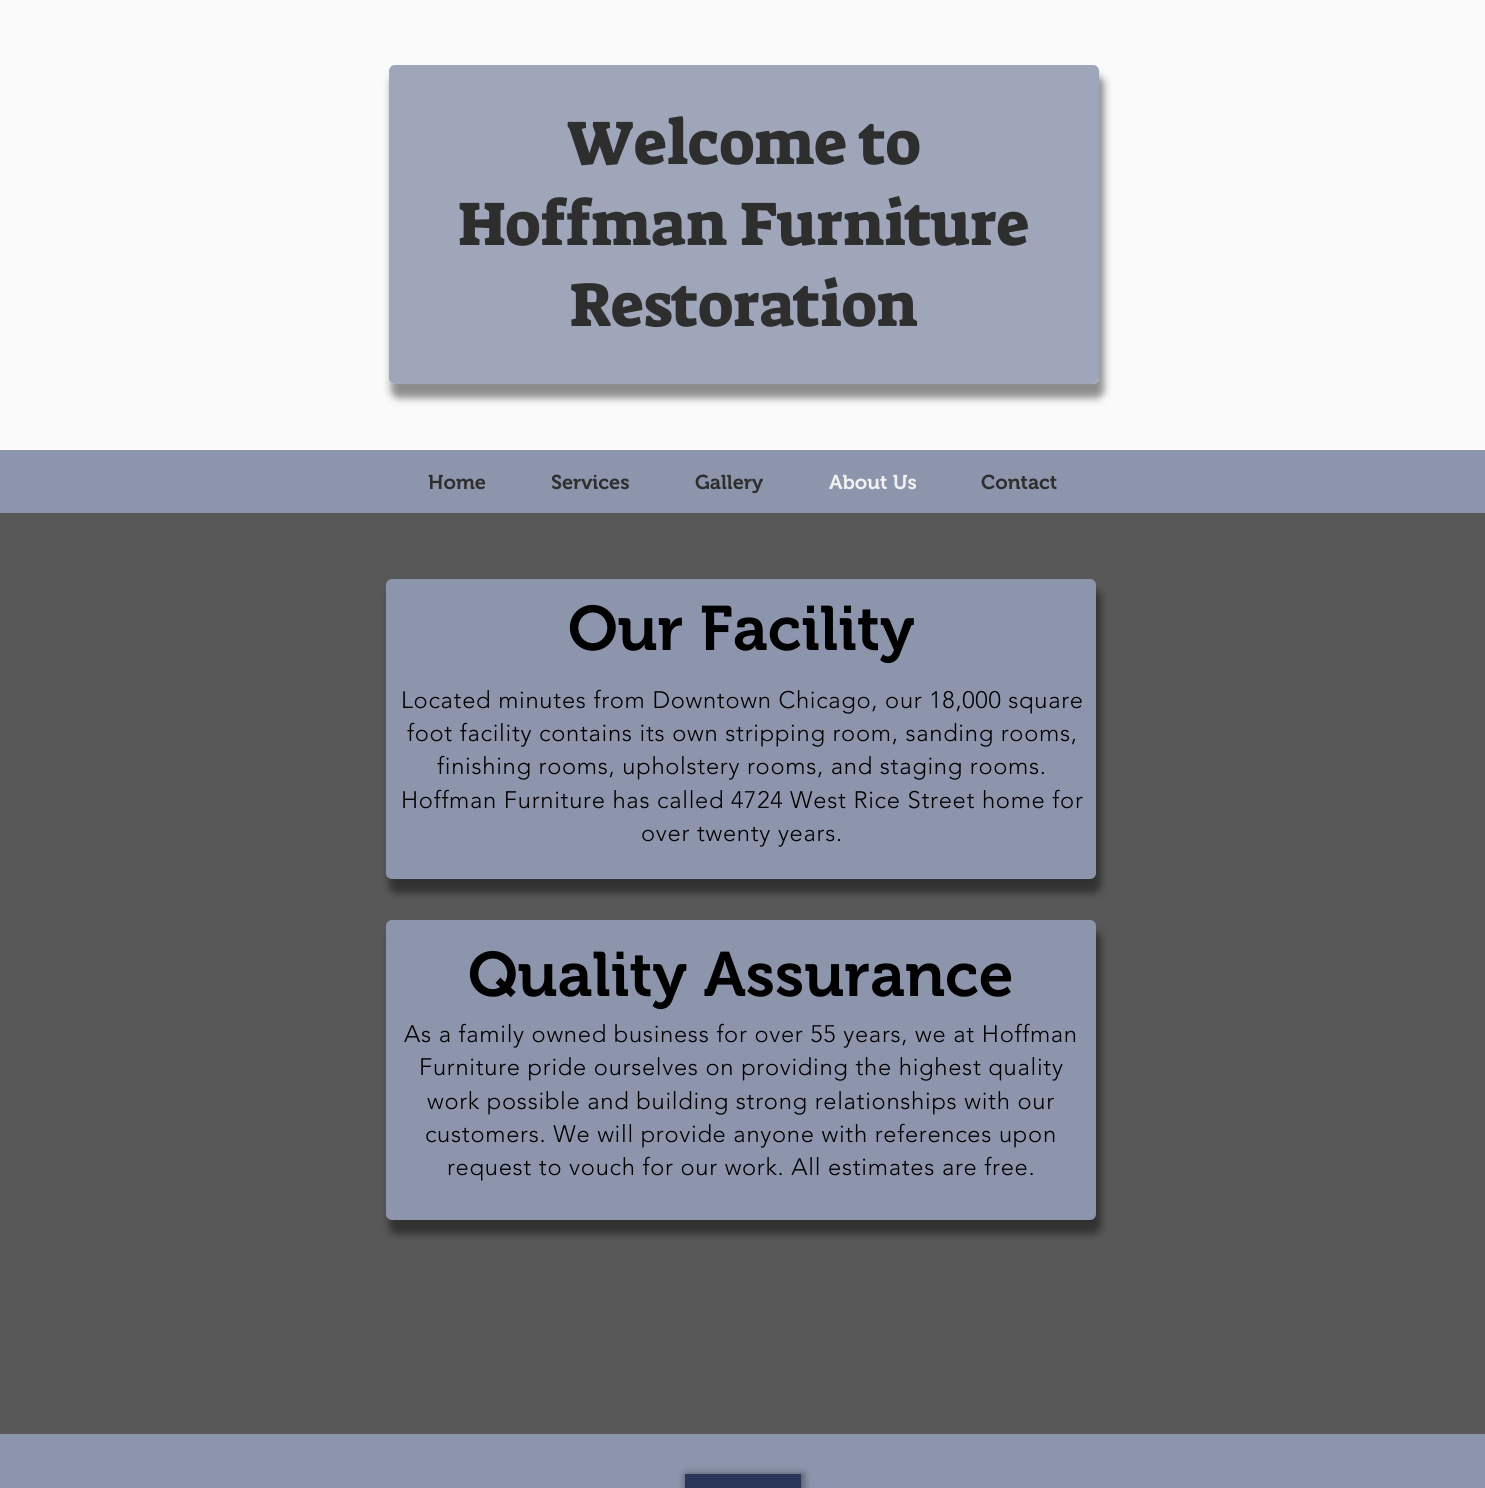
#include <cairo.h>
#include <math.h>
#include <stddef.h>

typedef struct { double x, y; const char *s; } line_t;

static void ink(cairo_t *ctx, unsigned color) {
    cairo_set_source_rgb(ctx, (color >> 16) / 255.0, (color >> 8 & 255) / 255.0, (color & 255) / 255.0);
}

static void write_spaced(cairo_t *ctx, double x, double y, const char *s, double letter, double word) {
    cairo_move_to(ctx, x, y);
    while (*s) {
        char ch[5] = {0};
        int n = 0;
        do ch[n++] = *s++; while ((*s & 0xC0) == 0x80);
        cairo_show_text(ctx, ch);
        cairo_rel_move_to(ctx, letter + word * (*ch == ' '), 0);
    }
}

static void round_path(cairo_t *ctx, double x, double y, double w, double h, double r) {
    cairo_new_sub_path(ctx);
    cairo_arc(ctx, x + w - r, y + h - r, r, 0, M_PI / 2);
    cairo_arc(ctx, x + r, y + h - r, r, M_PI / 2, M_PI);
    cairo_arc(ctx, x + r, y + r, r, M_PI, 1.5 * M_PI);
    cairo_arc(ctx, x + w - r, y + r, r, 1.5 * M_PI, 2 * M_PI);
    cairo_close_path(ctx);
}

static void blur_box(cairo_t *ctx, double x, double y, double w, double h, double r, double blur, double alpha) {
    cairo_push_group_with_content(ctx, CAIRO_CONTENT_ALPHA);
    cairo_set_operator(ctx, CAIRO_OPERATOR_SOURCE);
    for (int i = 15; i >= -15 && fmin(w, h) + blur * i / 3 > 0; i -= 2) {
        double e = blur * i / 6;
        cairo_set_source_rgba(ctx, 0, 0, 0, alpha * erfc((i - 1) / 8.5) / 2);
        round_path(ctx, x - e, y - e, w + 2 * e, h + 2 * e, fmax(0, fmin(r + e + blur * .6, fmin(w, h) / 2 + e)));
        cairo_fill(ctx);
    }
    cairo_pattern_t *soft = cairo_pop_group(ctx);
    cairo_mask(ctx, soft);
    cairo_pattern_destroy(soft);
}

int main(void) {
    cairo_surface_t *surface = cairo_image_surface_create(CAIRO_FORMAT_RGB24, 1485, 1488);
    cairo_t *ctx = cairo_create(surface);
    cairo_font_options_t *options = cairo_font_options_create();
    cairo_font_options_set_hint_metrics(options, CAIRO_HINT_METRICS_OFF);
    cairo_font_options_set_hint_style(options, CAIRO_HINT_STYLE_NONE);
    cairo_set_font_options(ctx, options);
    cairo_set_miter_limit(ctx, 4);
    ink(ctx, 0x595858);
    cairo_paint(ctx);
    ink(ctx, 0xFAFAFA);
    cairo_rectangle(ctx, 0, 0, 1485, 450);
    cairo_fill(ctx);
    cairo_save(ctx);
    cairo_set_fill_rule(ctx, CAIRO_FILL_RULE_EVEN_ODD);
    cairo_new_path(ctx);
    cairo_move_to(ctx, 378, 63);
    cairo_line_to(ctx, 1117, 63);
    cairo_line_to(ctx, 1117, 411);
    cairo_line_to(ctx, 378, 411);
    cairo_close_path(ctx);
    cairo_move_to(ctx, 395, 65);
    cairo_line_to(ctx, 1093, 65);
    cairo_curve_to(ctx, 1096.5, 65, 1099, 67.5, 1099, 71);
    cairo_line_to(ctx, 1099, 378);
    cairo_curve_to(ctx, 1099, 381.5, 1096.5, 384, 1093, 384);
    cairo_line_to(ctx, 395, 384);
    cairo_curve_to(ctx, 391.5, 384, 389, 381.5, 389, 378);
    cairo_line_to(ctx, 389, 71);
    cairo_curve_to(ctx, 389, 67.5, 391.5, 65, 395, 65);
    cairo_close_path(ctx);
    cairo_clip(ctx);
    ink(ctx, 0x000000);
    blur_box(ctx, 391, 76, 713, 322, 8, 4, 0.44);
    cairo_restore(ctx);
    cairo_set_source_rgba(ctx, 0.553, 0.584, 0.675, 0.83);
    round_path(ctx, 389, 65, 710, 319, 6);
    cairo_fill(ctx);
    cairo_select_font_face(ctx, "Suez One", CAIRO_FONT_SLANT_NORMAL, CAIRO_FONT_WEIGHT_NORMAL);
    cairo_set_font_size(ctx, 62.5);
    ink(ctx, 0x2F2E2E);
    {
        static const line_t items[] = {
            {566, 164, "Welcome to"},
            {458, 245, "Hoffman Furniture"},
            {569, 326, "Restoration"},
        };
        for (size_t i = 0; i < sizeof items / sizeof *items; i++) {
            cairo_move_to(ctx, items[i].x, items[i].y);
            cairo_show_text(ctx, items[i].s);
        }
    }
    ink(ctx, 0x8D95AC);
    cairo_rectangle(ctx, 0, 450, 1485, 63);
    cairo_fill(ctx);
    cairo_select_font_face(ctx, "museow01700 SemiBold", CAIRO_FONT_SLANT_NORMAL, CAIRO_FONT_WEIGHT_NORMAL);
    cairo_set_font_size(ctx, 20);
    ink(ctx, 0x2F2E2E);
    {
        static const line_t items[] = {
            {428, 489, "Home"},
            {551, 489, "Services"},
            {695, 489, "Gallery"},
        };
        for (size_t i = 0; i < sizeof items / sizeof *items; i++) {
            cairo_move_to(ctx, items[i].x, items[i].y);
            cairo_show_text(ctx, items[i].s);
        }
    }
    ink(ctx, 0xF2F2F2);
    cairo_move_to(ctx, 829, 489);
    cairo_show_text(ctx, "About Us");
    ink(ctx, 0x2F2E2E);
    cairo_move_to(ctx, 981, 489);
    cairo_show_text(ctx, "Contact");
    ink(ctx, 0x000000);
    blur_box(ctx, 389, 590, 712, 303, 8, 4, 0.44);
    ink(ctx, 0x8D95AC);
    round_path(ctx, 386, 579, 710, 300, 6);
    cairo_fill(ctx);
    cairo_set_font_size(ctx, 62.5);
    ink(ctx, 0x000000);
    cairo_move_to(ctx, 568, 650);
    cairo_show_text(ctx, "Our Facility");
    cairo_select_font_face(ctx, "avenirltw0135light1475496 Light", CAIRO_FONT_SLANT_NORMAL, CAIRO_FONT_WEIGHT_NORMAL);
    cairo_set_font_size(ctx, 23.75);
    {
        static const line_t items[] = {
            {401, 708, "Located minutes from Downtown Chicago, our 18,000 square"},
            {407, 741, "foot facility contains its own stripping room, sanding rooms,"},
            {437, 774, "finishing rooms, upholstery rooms, and staging rooms."},
            {401, 808, "Hoffman Furniture has called 4724 West Rice Street home for"},
            {641, 841, "over twenty years."},
        };
        for (size_t i = 0; i < sizeof items / sizeof *items; i++) {
            write_spaced(ctx, items[i].x, items[i].y, items[i].s, 0.7, 0);
        }
    }
    ink(ctx, 0x000000);
    blur_box(ctx, 389, 931, 712, 303, 8, 4, 0.44);
    ink(ctx, 0x8D95AC);
    round_path(ctx, 386, 920, 710, 300, 6);
    cairo_fill(ctx);
    cairo_select_font_face(ctx, "museow01700 SemiBold", CAIRO_FONT_SLANT_NORMAL, CAIRO_FONT_WEIGHT_NORMAL);
    cairo_set_font_size(ctx, 62.5);
    ink(ctx, 0x000000);
    cairo_move_to(ctx, 468, 996);
    cairo_show_text(ctx, "Quality Assurance");
    cairo_select_font_face(ctx, "avenirltw0135light1475496 Light", CAIRO_FONT_SLANT_NORMAL, CAIRO_FONT_WEIGHT_NORMAL);
    cairo_set_font_size(ctx, 23.75);
    {
        static const line_t items[] = {
            {404, 1042, "As a family owned business for over 55 years, we at Hoffman"},
            {419, 1075, "Furniture pride ourselves on providing the highest quality"},
            {427, 1109, "work possible and building strong relationships with our"},
            {425, 1142, "customers. We will provide anyone with references upon"},
            {447, 1175, "request to vouch for our work. All estimates are free."},
        };
        for (size_t i = 0; i < sizeof items / sizeof *items; i++) {
            write_spaced(ctx, items[i].x, items[i].y, items[i].s, 0.7, 0);
        }
    }
    ink(ctx, 0x8D95AC);
    cairo_rectangle(ctx, 0, 1434, 1485, 54);
    cairo_fill(ctx);
    ink(ctx, 0x000000);
    blur_box(ctx, 685, 1474, 119, 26, 0, 4, 0.4);
    ink(ctx, 0x293559);
    cairo_rectangle(ctx, 685, 1474, 116, 14);
    cairo_fill(ctx);
    cairo_surface_write_to_png(surface, "image.png");
    cairo_font_options_destroy(options);
    cairo_destroy(ctx);
    cairo_surface_destroy(surface);
    return 0;
}
